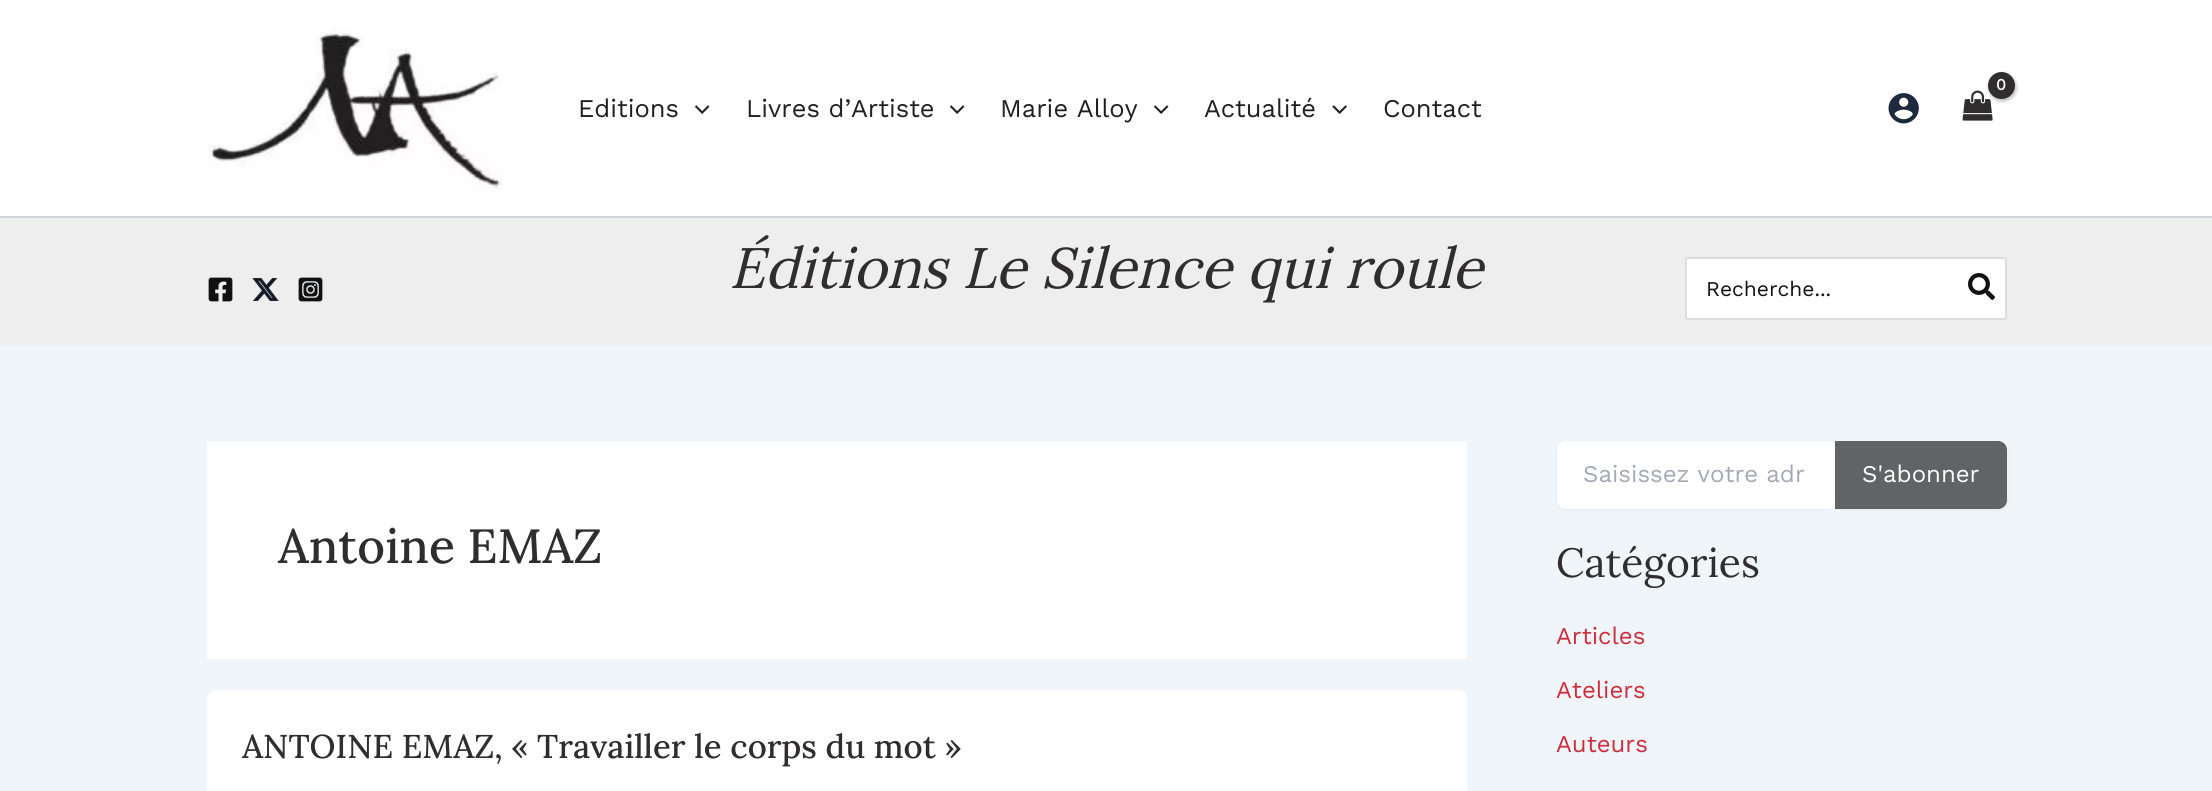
#include <cairo.h>
#include <math.h>
#include <stddef.h>

typedef struct { double x, y; const char *s; } line_t;

static void ink(cairo_t *ctx, unsigned color) {
    cairo_set_source_rgb(ctx, (color >> 16) / 255.0, (color >> 8 & 255) / 255.0, (color & 255) / 255.0);
}

static void write_spaced(cairo_t *ctx, double x, double y, const char *s, double letter, double word) {
    cairo_move_to(ctx, x, y);
    while (*s) {
        char ch[5] = {0};
        int n = 0;
        do ch[n++] = *s++; while ((*s & 0xC0) == 0x80);
        cairo_show_text(ctx, ch);
        cairo_rel_move_to(ctx, letter + word * (*ch == ' '), 0);
    }
}

static void round_path(cairo_t *ctx, double x, double y, double w, double h, double r) {
    cairo_new_sub_path(ctx);
    cairo_arc(ctx, x + w - r, y + h - r, r, 0, M_PI / 2);
    cairo_arc(ctx, x + r, y + h - r, r, M_PI / 2, M_PI);
    cairo_arc(ctx, x + r, y + r, r, M_PI, 1.5 * M_PI);
    cairo_arc(ctx, x + w - r, y + r, r, 1.5 * M_PI, 2 * M_PI);
    cairo_close_path(ctx);
}

static void blur_box(cairo_t *ctx, double x, double y, double w, double h, double r, double blur, double alpha) {
    cairo_push_group_with_content(ctx, CAIRO_CONTENT_ALPHA);
    cairo_set_operator(ctx, CAIRO_OPERATOR_SOURCE);
    for (int i = 15; i >= -15 && fmin(w, h) + blur * i / 3 > 0; i -= 2) {
        double e = blur * i / 6;
        cairo_set_source_rgba(ctx, 0, 0, 0, alpha * erfc((i - 1) / 8.5) / 2);
        round_path(ctx, x - e, y - e, w + 2 * e, h + 2 * e, fmax(0, fmin(r + e + blur * .6, fmin(w, h) / 2 + e)));
        cairo_fill(ctx);
    }
    cairo_pattern_t *soft = cairo_pop_group(ctx);
    cairo_mask(ctx, soft);
    cairo_pattern_destroy(soft);
}

static void paste(cairo_t *ctx, const char *path, double x, double y, double w, double h) {
    cairo_surface_t *image = cairo_image_surface_create_from_png(path);
    cairo_save(ctx);
    cairo_set_source_surface(ctx, image, x, y);
    cairo_rectangle(ctx, x, y, w, h);
    cairo_fill(ctx);
    cairo_restore(ctx);
    cairo_surface_destroy(image);
}

int main(void) {
    cairo_surface_t *surface = cairo_image_surface_create(CAIRO_FORMAT_RGB24, 2212, 791);
    cairo_t *ctx = cairo_create(surface);
    cairo_font_options_t *options = cairo_font_options_create();
    cairo_font_options_set_hint_metrics(options, CAIRO_HINT_METRICS_OFF);
    cairo_font_options_set_hint_style(options, CAIRO_HINT_STYLE_NONE);
    cairo_set_font_options(ctx, options);
    cairo_set_miter_limit(ctx, 4);
    ink(ctx, 0xF0F5FA);
    cairo_paint(ctx);
    ink(ctx, 0xFFFFFF);
    cairo_rectangle(ctx, 0, 0, 2212, 216);
    cairo_fill(ctx);
    ink(ctx, 0xD1D5DB);
    cairo_rectangle(ctx, 0, 216, 2212, 2);
    cairo_fill(ctx);
    paste(ctx, "media/1.png", 1962, 90, 31, 31);
    ink(ctx, 0x000000);
    blur_box(ctx, 1989, 74, 27, 27, 13.5, 2, 0.3);
    ink(ctx, 0x2F2D2D);
    cairo_arc(ctx, 2001.5, 85.5, 13.5, 0, 2 * M_PI);
    cairo_fill(ctx);
    cairo_select_font_face(ctx, "Work Sans", CAIRO_FONT_SLANT_NORMAL, CAIRO_FONT_WEIGHT_BOLD);
    cairo_set_font_size(ctx, 16);
    ink(ctx, 0xFFFFFF);
    write_spaced(ctx, 1996, 90, "0", -1, 0);
    paste(ctx, "media/2.png", 1888, 93, 31, 31);
    paste(ctx, "media/3.png", 207, 29, 295, 161);
    cairo_select_font_face(ctx, "Work Sans", CAIRO_FONT_SLANT_NORMAL, CAIRO_FONT_WEIGHT_NORMAL);
    cairo_set_font_size(ctx, 25.5);
    ink(ctx, 0x202020);
    cairo_move_to(ctx, 578, 117);
    cairo_show_text(ctx, "Editions");
    paste(ctx, "media/4.png", 695, 105, 15, 9);
    cairo_move_to(ctx, 746, 117);
    cairo_show_text(ctx, "Livres d’Artiste");
    paste(ctx, "media/4.png", 950, 105, 15, 9);
    cairo_move_to(ctx, 1000, 117);
    cairo_show_text(ctx, "Marie Alloy");
    paste(ctx, "media/4.png", 1154, 105, 15, 9);
    cairo_move_to(ctx, 1204, 117);
    cairo_show_text(ctx, "Actualité");
    paste(ctx, "media/5.png", 1332, 105, 15, 9);
    cairo_move_to(ctx, 1383, 117);
    cairo_show_text(ctx, "Contact");
    ink(ctx, 0xEEEEEE);
    cairo_rectangle(ctx, 0, 218, 2212, 127);
    cairo_fill(ctx);
    paste(ctx, "media/6.png", 208, 277, 25, 25);
    paste(ctx, "media/7.png", 252, 278, 27, 23);
    paste(ctx, "media/8.png", 298, 277, 25, 25);
    cairo_select_font_face(ctx, "Lora", CAIRO_FONT_SLANT_ITALIC, CAIRO_FONT_WEIGHT_NORMAL);
    cairo_set_font_size(ctx, 57);
    ink(ctx, 0x2F2D2D);
    cairo_move_to(ctx, 729, 288);
    cairo_show_text(ctx, "Éditions Le Silence qui roule");
    ink(ctx, 0xFFFFFF);
    round_path(ctx, 1686, 258, 320, 61, 2);
    cairo_fill_preserve(ctx);
    ink(ctx, 0xDDDDDD);
    cairo_stroke(ctx);
    cairo_select_font_face(ctx, "Work Sans", CAIRO_FONT_SLANT_NORMAL, CAIRO_FONT_WEIGHT_NORMAL);
    cairo_set_font_size(ctx, 21);
    ink(ctx, 0x111111);
    cairo_move_to(ctx, 1706, 296);
    cairo_show_text(ctx, "Recherche...");
    paste(ctx, "media/9.png", 1968, 273, 27, 27);
    ink(ctx, 0xFFFFFF);
    cairo_rectangle(ctx, 207, 441, 1260, 218);
    cairo_fill(ctx);
    cairo_select_font_face(ctx, "Lora Medium", CAIRO_FONT_SLANT_NORMAL, CAIRO_FONT_WEIGHT_NORMAL);
    cairo_set_font_size(ctx, 48);
    ink(ctx, 0x2F2D2D);
    cairo_move_to(ctx, 278, 563);
    cairo_show_text(ctx, "Antoine EMAZ");
    ink(ctx, 0xFFFFFF);
    round_path(ctx, 207, 690, 1260, 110, 9);
    cairo_fill(ctx);
    cairo_set_font_size(ctx, 33);
    ink(ctx, 0x2F2D2D);
    cairo_move_to(ctx, 242, 758);
    cairo_show_text(ctx, "ANTOINE EMAZ, « Travailler le corps du mot »");
    ink(ctx, 0x000000);
    blur_box(ctx, 1557, 443, 278, 67, 9, 1.5, 0.05);
    ink(ctx, 0xFFFFFF);
    cairo_new_path(ctx);
    cairo_move_to(ctx, 1566, 441);
    cairo_line_to(ctx, 1835, 441);
    cairo_line_to(ctx, 1835, 509);
    cairo_line_to(ctx, 1566, 509);
    cairo_curve_to(ctx, 1561, 509, 1557, 505, 1557, 500);
    cairo_line_to(ctx, 1557, 450);
    cairo_curve_to(ctx, 1557, 445, 1561, 441, 1566, 441);
    cairo_close_path(ctx);
    cairo_fill(ctx);
    cairo_select_font_face(ctx, "Work Sans", CAIRO_FONT_SLANT_NORMAL, CAIRO_FONT_WEIGHT_NORMAL);
    cairo_set_font_size(ctx, 24);
    ink(ctx, 0xA3AAB4);
    cairo_move_to(ctx, 1583, 482);
    cairo_show_text(ctx, "Saisissez votre adr");
    ink(ctx, 0x000000);
    blur_box(ctx, 1835, 443, 172, 67, 9, 1.5, 0.05);
    ink(ctx, 0x616364);
    cairo_new_path(ctx);
    cairo_move_to(ctx, 1835, 441);
    cairo_line_to(ctx, 1998, 441);
    cairo_curve_to(ctx, 2003, 441, 2007, 445, 2007, 450);
    cairo_line_to(ctx, 2007, 500);
    cairo_curve_to(ctx, 2007, 505, 2003, 509, 1998, 509);
    cairo_line_to(ctx, 1835, 509);
    cairo_close_path(ctx);
    cairo_fill(ctx);
    ink(ctx, 0xFFFFFF);
    cairo_move_to(ctx, 1862, 482);
    cairo_show_text(ctx, "S'abonner");
    cairo_select_font_face(ctx, "Lora", CAIRO_FONT_SLANT_NORMAL, CAIRO_FONT_WEIGHT_NORMAL);
    cairo_set_font_size(ctx, 40.75);
    ink(ctx, 0x2F2D2D);
    cairo_move_to(ctx, 1556, 577);
    cairo_show_text(ctx, "Catégories");
    cairo_select_font_face(ctx, "Work Sans", CAIRO_FONT_SLANT_NORMAL, CAIRO_FONT_WEIGHT_NORMAL);
    cairo_set_font_size(ctx, 24);
    ink(ctx, 0xCE2D3A);
    {
        static const line_t items[] = {
            {1556, 644, "Articles"},
            {1556, 698, "Ateliers"},
            {1556, 752, "Auteurs"},
        };
        for (size_t i = 0; i < sizeof items / sizeof *items; i++) {
            cairo_move_to(ctx, items[i].x, items[i].y);
            cairo_show_text(ctx, items[i].s);
        }
    }
    cairo_surface_write_to_png(surface, "image.png");
    cairo_font_options_destroy(options);
    cairo_destroy(ctx);
    cairo_surface_destroy(surface);
    return 0;
}
